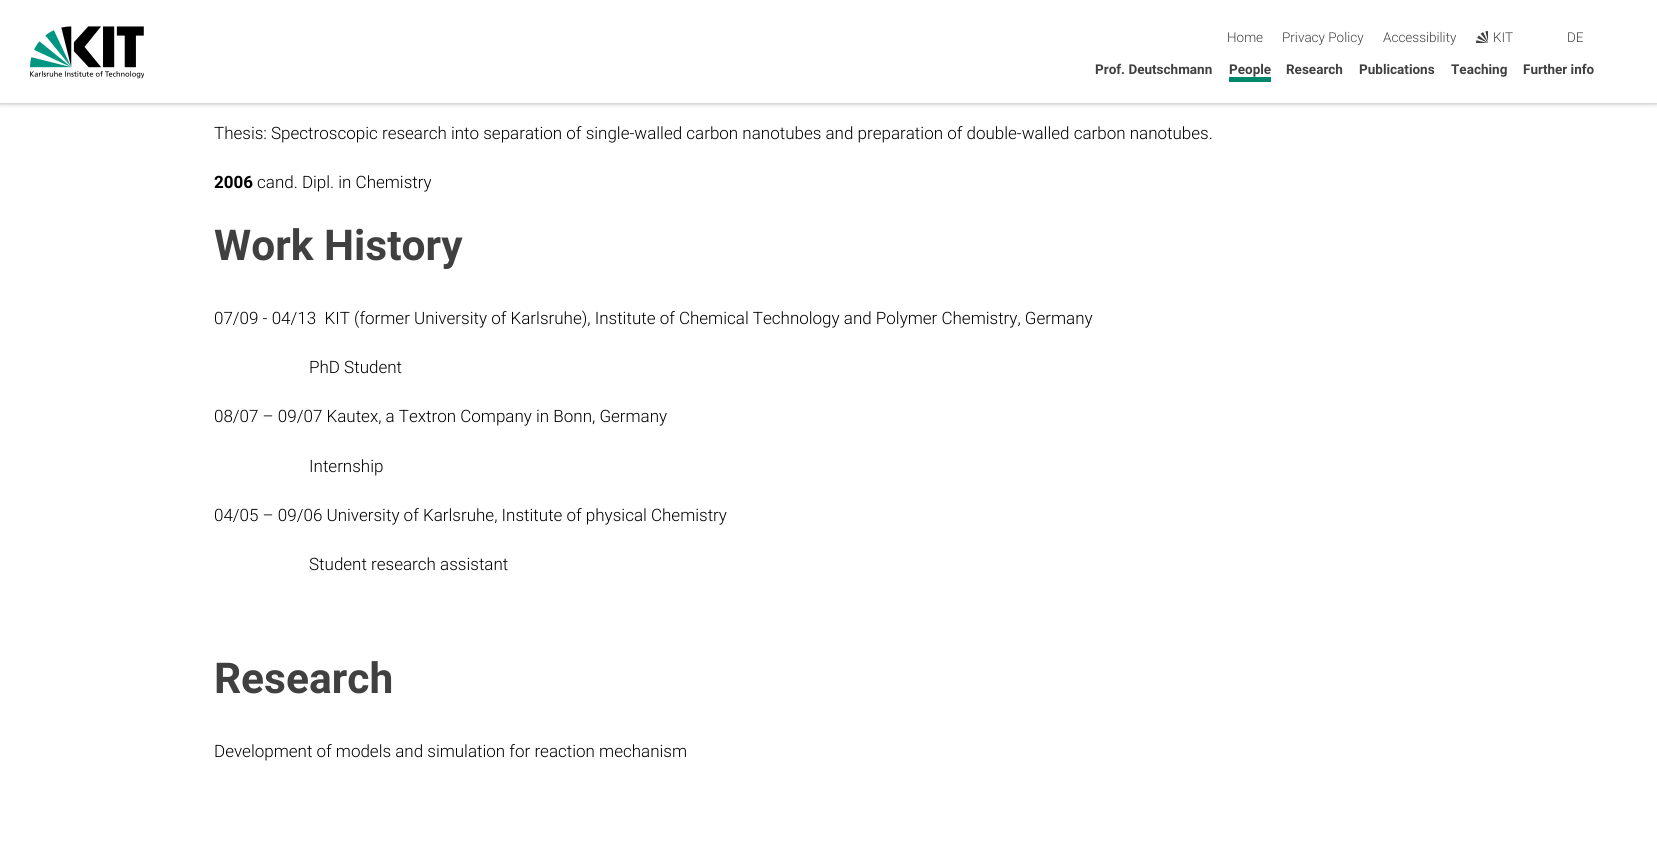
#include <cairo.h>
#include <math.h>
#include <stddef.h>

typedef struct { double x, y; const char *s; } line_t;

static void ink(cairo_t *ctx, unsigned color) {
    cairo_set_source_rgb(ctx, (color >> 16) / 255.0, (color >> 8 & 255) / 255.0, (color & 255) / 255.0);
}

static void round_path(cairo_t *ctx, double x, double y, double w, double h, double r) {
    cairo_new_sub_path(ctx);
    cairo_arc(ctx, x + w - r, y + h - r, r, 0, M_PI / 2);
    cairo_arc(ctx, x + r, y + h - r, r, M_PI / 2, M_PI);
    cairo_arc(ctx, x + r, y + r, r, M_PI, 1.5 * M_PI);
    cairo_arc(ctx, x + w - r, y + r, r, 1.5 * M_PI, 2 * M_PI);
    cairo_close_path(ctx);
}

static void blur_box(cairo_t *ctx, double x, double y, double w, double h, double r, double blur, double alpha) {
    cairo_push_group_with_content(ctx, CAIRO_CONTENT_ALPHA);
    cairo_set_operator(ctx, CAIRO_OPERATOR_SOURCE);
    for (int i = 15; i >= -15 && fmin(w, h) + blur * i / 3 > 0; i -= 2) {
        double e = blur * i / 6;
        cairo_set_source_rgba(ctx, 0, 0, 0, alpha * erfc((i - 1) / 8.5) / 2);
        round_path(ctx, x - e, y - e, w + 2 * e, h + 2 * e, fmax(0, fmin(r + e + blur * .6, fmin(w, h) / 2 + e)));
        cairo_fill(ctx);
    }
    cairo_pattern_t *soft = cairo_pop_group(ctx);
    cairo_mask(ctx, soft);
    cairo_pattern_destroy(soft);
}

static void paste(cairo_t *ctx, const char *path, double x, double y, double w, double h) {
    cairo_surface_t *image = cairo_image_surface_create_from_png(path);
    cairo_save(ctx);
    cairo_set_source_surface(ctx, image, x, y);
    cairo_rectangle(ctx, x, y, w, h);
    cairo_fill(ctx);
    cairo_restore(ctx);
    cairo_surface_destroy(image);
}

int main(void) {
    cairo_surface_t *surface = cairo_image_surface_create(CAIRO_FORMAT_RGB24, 1657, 863);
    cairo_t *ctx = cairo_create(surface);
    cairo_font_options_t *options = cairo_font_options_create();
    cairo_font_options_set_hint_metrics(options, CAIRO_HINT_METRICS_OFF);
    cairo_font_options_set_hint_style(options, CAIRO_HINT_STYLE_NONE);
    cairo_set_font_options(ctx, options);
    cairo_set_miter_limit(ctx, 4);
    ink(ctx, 0xFFFFFF);
    cairo_paint(ctx);
    ink(ctx, 0x404040);
    blur_box(ctx, 0, 0, 1657, 103, 0, 2.5, 0.5);
    ink(ctx, 0xFFFFFF);
    cairo_rectangle(ctx, 0, 0, 1657, 103);
    cairo_fill(ctx);
    paste(ctx, "media/1.png", 30, 26, 114, 53);
    cairo_select_font_face(ctx, "Roboto Light", CAIRO_FONT_SLANT_NORMAL, CAIRO_FONT_WEIGHT_NORMAL);
    cairo_set_font_size(ctx, 13.5);
    ink(ctx, 0x404040);
    {
        static const line_t items[] = {
            {1227, 42, "Home"},
            {1282, 42, "Privacy Policy"},
            {1383, 42, "Accessibility"},
        };
        for (size_t i = 0; i < sizeof items / sizeof *items; i++) {
            cairo_move_to(ctx, items[i].x, items[i].y);
            cairo_show_text(ctx, items[i].s);
        }
    }
    paste(ctx, "media/2.png", 1476, 31, 12, 12);
    cairo_move_to(ctx, 1493, 42);
    cairo_show_text(ctx, "KIT");
    cairo_move_to(ctx, 1567, 42);
    cairo_show_text(ctx, "DE");
    cairo_select_font_face(ctx, "Roboto", CAIRO_FONT_SLANT_NORMAL, CAIRO_FONT_WEIGHT_BOLD);
    cairo_move_to(ctx, 1095, 74);
    cairo_show_text(ctx, "Prof. Deutschmann");
    cairo_move_to(ctx, 1229, 74);
    cairo_show_text(ctx, "People");
    ink(ctx, 0x00876C);
    cairo_rectangle(ctx, 1229, 77, 42, 5);
    cairo_fill(ctx);
    ink(ctx, 0x404040);
    {
        static const line_t items[] = {
            {1286, 74, "Research"},
            {1359, 74, "Publications"},
            {1451, 74, "Teaching"},
            {1523, 74, "Further info"},
        };
        for (size_t i = 0; i < sizeof items / sizeof *items; i++) {
            cairo_move_to(ctx, items[i].x, items[i].y);
            cairo_show_text(ctx, items[i].s);
        }
    }
    cairo_select_font_face(ctx, "Roboto Light", CAIRO_FONT_SLANT_NORMAL, CAIRO_FONT_WEIGHT_NORMAL);
    cairo_set_font_size(ctx, 17);
    ink(ctx, 0x000000);
    cairo_move_to(ctx, 214, 139);
    cairo_show_text(ctx, "Thesis: Spectroscopic research into separation of single-walled carbon nanotubes and preparation of double-walled carbon nanotubes.");
    cairo_select_font_face(ctx, "Roboto", CAIRO_FONT_SLANT_NORMAL, CAIRO_FONT_WEIGHT_BOLD);
    cairo_move_to(ctx, 214, 188);
    cairo_show_text(ctx, "2006");
    cairo_select_font_face(ctx, "Roboto Light", CAIRO_FONT_SLANT_NORMAL, CAIRO_FONT_WEIGHT_NORMAL);
    cairo_move_to(ctx, 257, 188);
    cairo_show_text(ctx, "cand. Dipl. in Chemistry");
    cairo_select_font_face(ctx, "Roboto", CAIRO_FONT_SLANT_NORMAL, CAIRO_FONT_WEIGHT_BOLD);
    cairo_set_font_size(ctx, 42.5);
    ink(ctx, 0x404040);
    cairo_move_to(ctx, 214, 260);
    cairo_show_text(ctx, "Work History");
    cairo_select_font_face(ctx, "Roboto Light", CAIRO_FONT_SLANT_NORMAL, CAIRO_FONT_WEIGHT_NORMAL);
    cairo_set_font_size(ctx, 17);
    ink(ctx, 0x000000);
    {
        static const line_t items[] = {
            {214, 324, "07/09 - 04/13  KIT (former University of Karlsruhe), Institute of Chemical Technology and Polymer Chemistry, Germany"},
            {309, 373, "PhD Student"},
            {214, 422, "08/07 – 09/07 Kautex, a Textron Company in Bonn, Germany"},
            {309, 472, "Internship"},
            {214, 521, "04/05 – 09/06 University of Karlsruhe, Institute of physical Chemistry"},
            {309, 570, "Student research assistant"},
        };
        for (size_t i = 0; i < sizeof items / sizeof *items; i++) {
            cairo_move_to(ctx, items[i].x, items[i].y);
            cairo_show_text(ctx, items[i].s);
        }
    }
    cairo_select_font_face(ctx, "Roboto", CAIRO_FONT_SLANT_NORMAL, CAIRO_FONT_WEIGHT_BOLD);
    cairo_set_font_size(ctx, 42.5);
    ink(ctx, 0x404040);
    cairo_move_to(ctx, 214, 693);
    cairo_show_text(ctx, "Research");
    cairo_select_font_face(ctx, "Roboto Light", CAIRO_FONT_SLANT_NORMAL, CAIRO_FONT_WEIGHT_NORMAL);
    cairo_set_font_size(ctx, 17);
    ink(ctx, 0x000000);
    cairo_move_to(ctx, 214, 757);
    cairo_show_text(ctx, "Development of models and simulation for reaction mechanism");
    cairo_surface_write_to_png(surface, "image.png");
    cairo_font_options_destroy(options);
    cairo_destroy(ctx);
    cairo_surface_destroy(surface);
    return 0;
}
